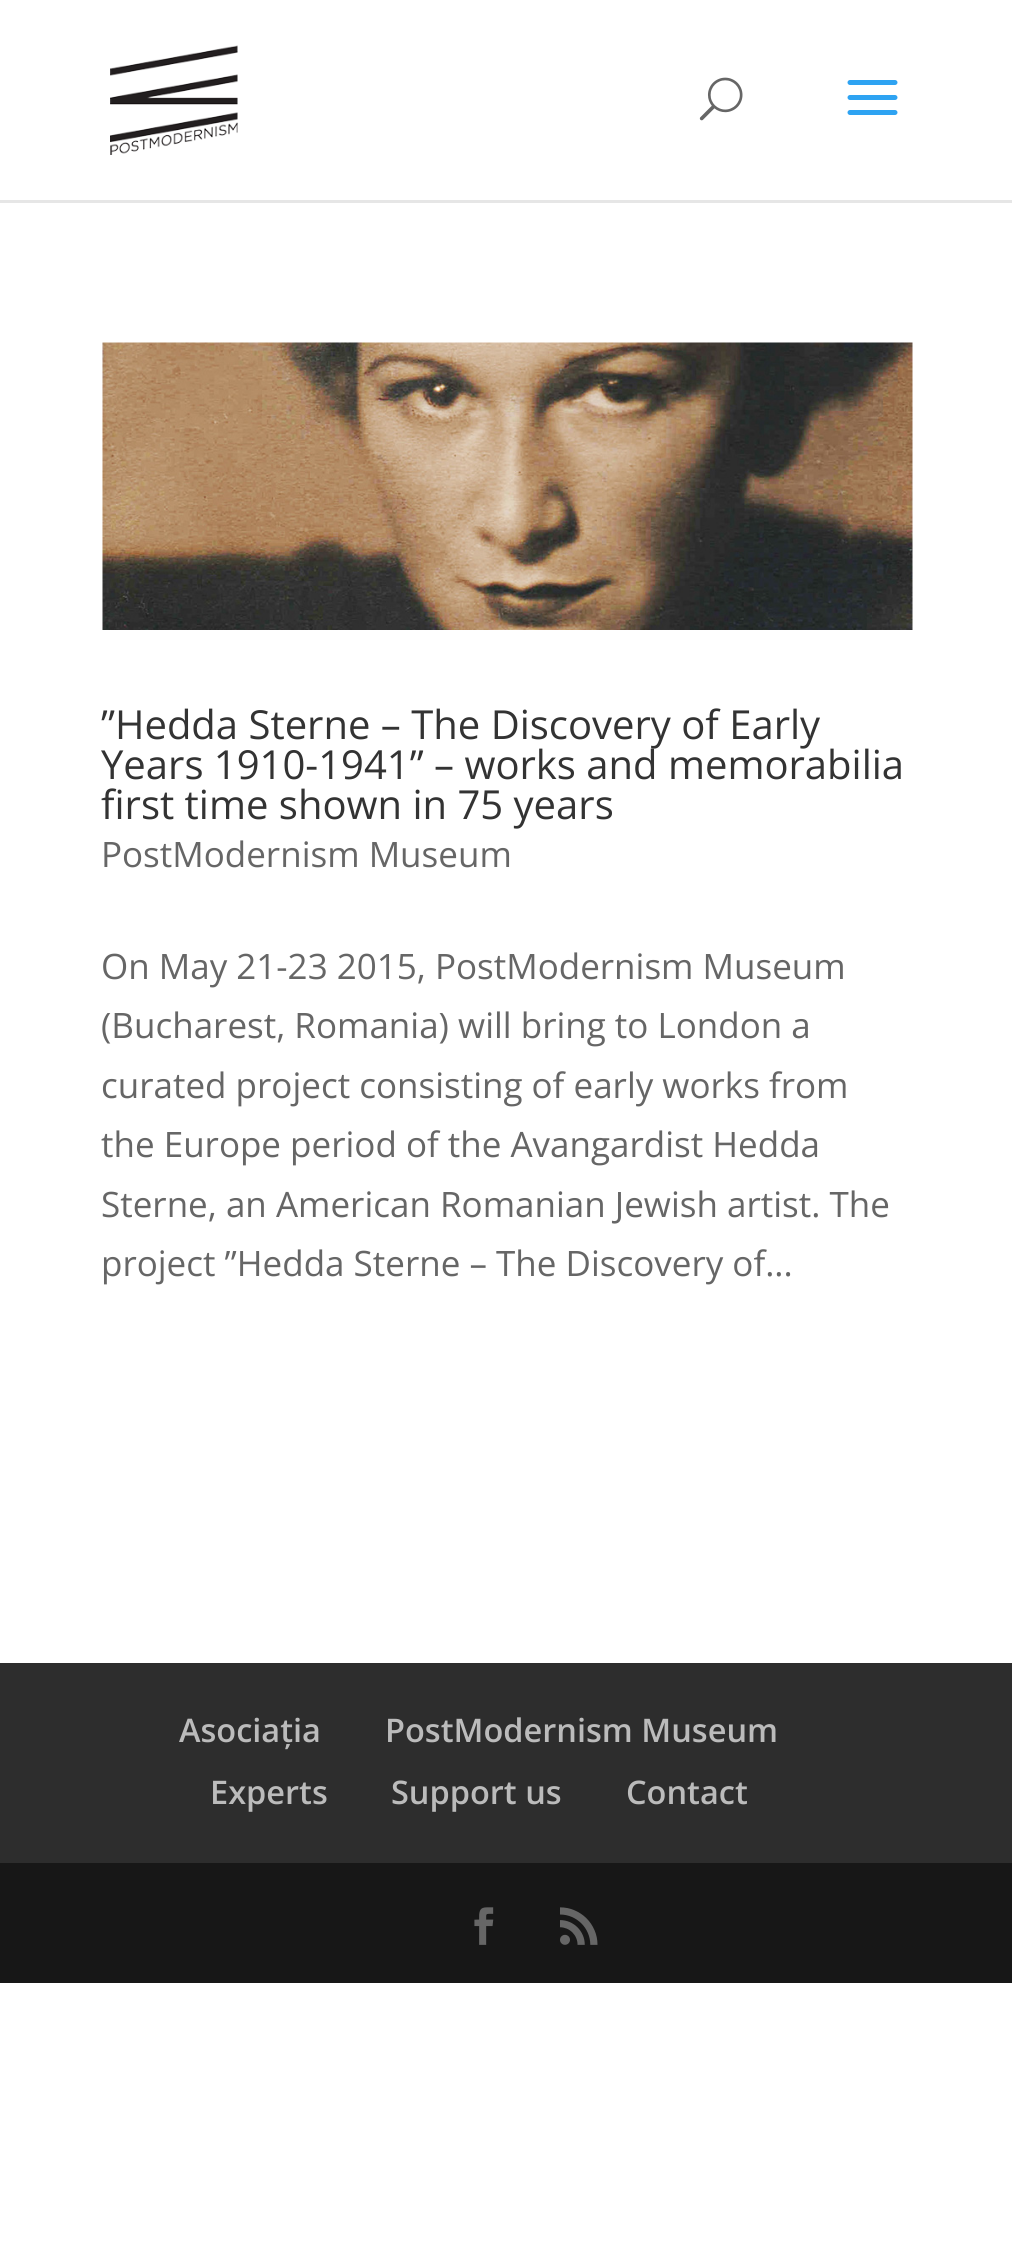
#include <cairo.h>
#include <math.h>
#include <stddef.h>

typedef struct { double x, y; const char *s; } line_t;

static void ink(cairo_t *ctx, unsigned color) {
    cairo_set_source_rgb(ctx, (color >> 16) / 255.0, (color >> 8 & 255) / 255.0, (color & 255) / 255.0);
}

static void paste(cairo_t *ctx, const char *path, double x, double y, double w, double h) {
    cairo_surface_t *image = cairo_image_surface_create_from_png(path);
    cairo_save(ctx);
    cairo_set_source_surface(ctx, image, x, y);
    cairo_rectangle(ctx, x, y, w, h);
    cairo_fill(ctx);
    cairo_restore(ctx);
    cairo_surface_destroy(image);
}

int main(void) {
    cairo_surface_t *surface = cairo_image_surface_create(CAIRO_FORMAT_RGB24, 1012, 2265);
    cairo_t *ctx = cairo_create(surface);
    cairo_font_options_t *options = cairo_font_options_create();
    cairo_font_options_set_hint_metrics(options, CAIRO_HINT_METRICS_OFF);
    cairo_font_options_set_hint_style(options, CAIRO_HINT_STYLE_NONE);
    cairo_set_font_options(ctx, options);
    cairo_set_miter_limit(ctx, 4);
    ink(ctx, 0xFFFFFF);
    cairo_paint(ctx);
    ink(ctx, 0xE6E6E6);
    cairo_new_path(ctx);
    cairo_move_to(ctx, 0, 200);
    cairo_line_to(ctx, 0, 203);
    cairo_line_to(ctx, 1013, 203);
    cairo_line_to(ctx, 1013, 3);
    cairo_line_to(ctx, 1012, 3);
    cairo_line_to(ctx, 1012, 200);
    cairo_close_path(ctx);
    cairo_fill(ctx);
    paste(ctx, "media/1.png", 110, 45, 128, 110);
    paste(ctx, "media/2.png", 699, 77, 44, 44);
    paste(ctx, "media/3.png", 847, 80, 51, 35);
    paste(ctx, "media/4.png", 102, 342, 811, 288);
    cairo_select_font_face(ctx, "Open Sans", CAIRO_FONT_SLANT_NORMAL, CAIRO_FONT_WEIGHT_NORMAL);
    cairo_set_font_size(ctx, 40);
    ink(ctx, 0x333333);
    {
        static const line_t items[] = {
            {101, 739, "”Hedda Sterne – The Discovery of Early"},
            {101, 779, "Years 1910-1941” – works and memorabilia"},
            {101, 819, "first time shown in 75 years"},
        };
        for (size_t i = 0; i < sizeof items / sizeof *items; i++) {
            cairo_move_to(ctx, items[i].x, items[i].y);
            cairo_show_text(ctx, items[i].s);
        }
    }
    cairo_set_font_size(ctx, 35);
    ink(ctx, 0x666666);
    {
        static const line_t items[] = {
            {101, 867, "PostModernism Museum"},
            {101, 979, "On May 21-23 2015, PostModernism Museum"},
            {101, 1038, "(Bucharest, Romania) will bring to London a"},
            {101, 1098, "curated project consisting of early works from"},
            {101, 1157, "the Europe period of the Avangardist Hedda"},
            {101, 1217, "Sterne, an American Romanian Jewish artist. The"},
            {101, 1276, "project ”Hedda Sterne – The Discovery of..."},
        };
        for (size_t i = 0; i < sizeof items / sizeof *items; i++) {
            cairo_move_to(ctx, items[i].x, items[i].y);
            cairo_show_text(ctx, items[i].s);
        }
    }
    ink(ctx, 0x2D2D2D);
    cairo_rectangle(ctx, 0, 1663, 1012, 200);
    cairo_fill(ctx);
    cairo_select_font_face(ctx, "Open Sans SemiBold", CAIRO_FONT_SLANT_NORMAL, CAIRO_FONT_WEIGHT_NORMAL);
    cairo_set_font_size(ctx, 32.5);
    ink(ctx, 0xBBBBBB);
    {
        static const line_t items[] = {
            {179, 1742, "Asociația"},
            {385, 1742, "PostModernism Museum"},
            {210, 1804, "Experts"},
            {391, 1804, "Support us"},
            {626, 1804, "Contact"},
        };
        for (size_t i = 0; i < sizeof items / sizeof *items; i++) {
            cairo_move_to(ctx, items[i].x, items[i].y);
            cairo_show_text(ctx, items[i].s);
        }
    }
    ink(ctx, 0x171717);
    cairo_rectangle(ctx, 0, 1863, 1012, 120);
    cairo_fill(ctx);
    paste(ctx, "media/5.png", 474, 1907, 20, 38);
    paste(ctx, "media/6.png", 560, 1907, 38, 38);
    cairo_surface_write_to_png(surface, "image.png");
    cairo_font_options_destroy(options);
    cairo_destroy(ctx);
    cairo_surface_destroy(surface);
    return 0;
}
